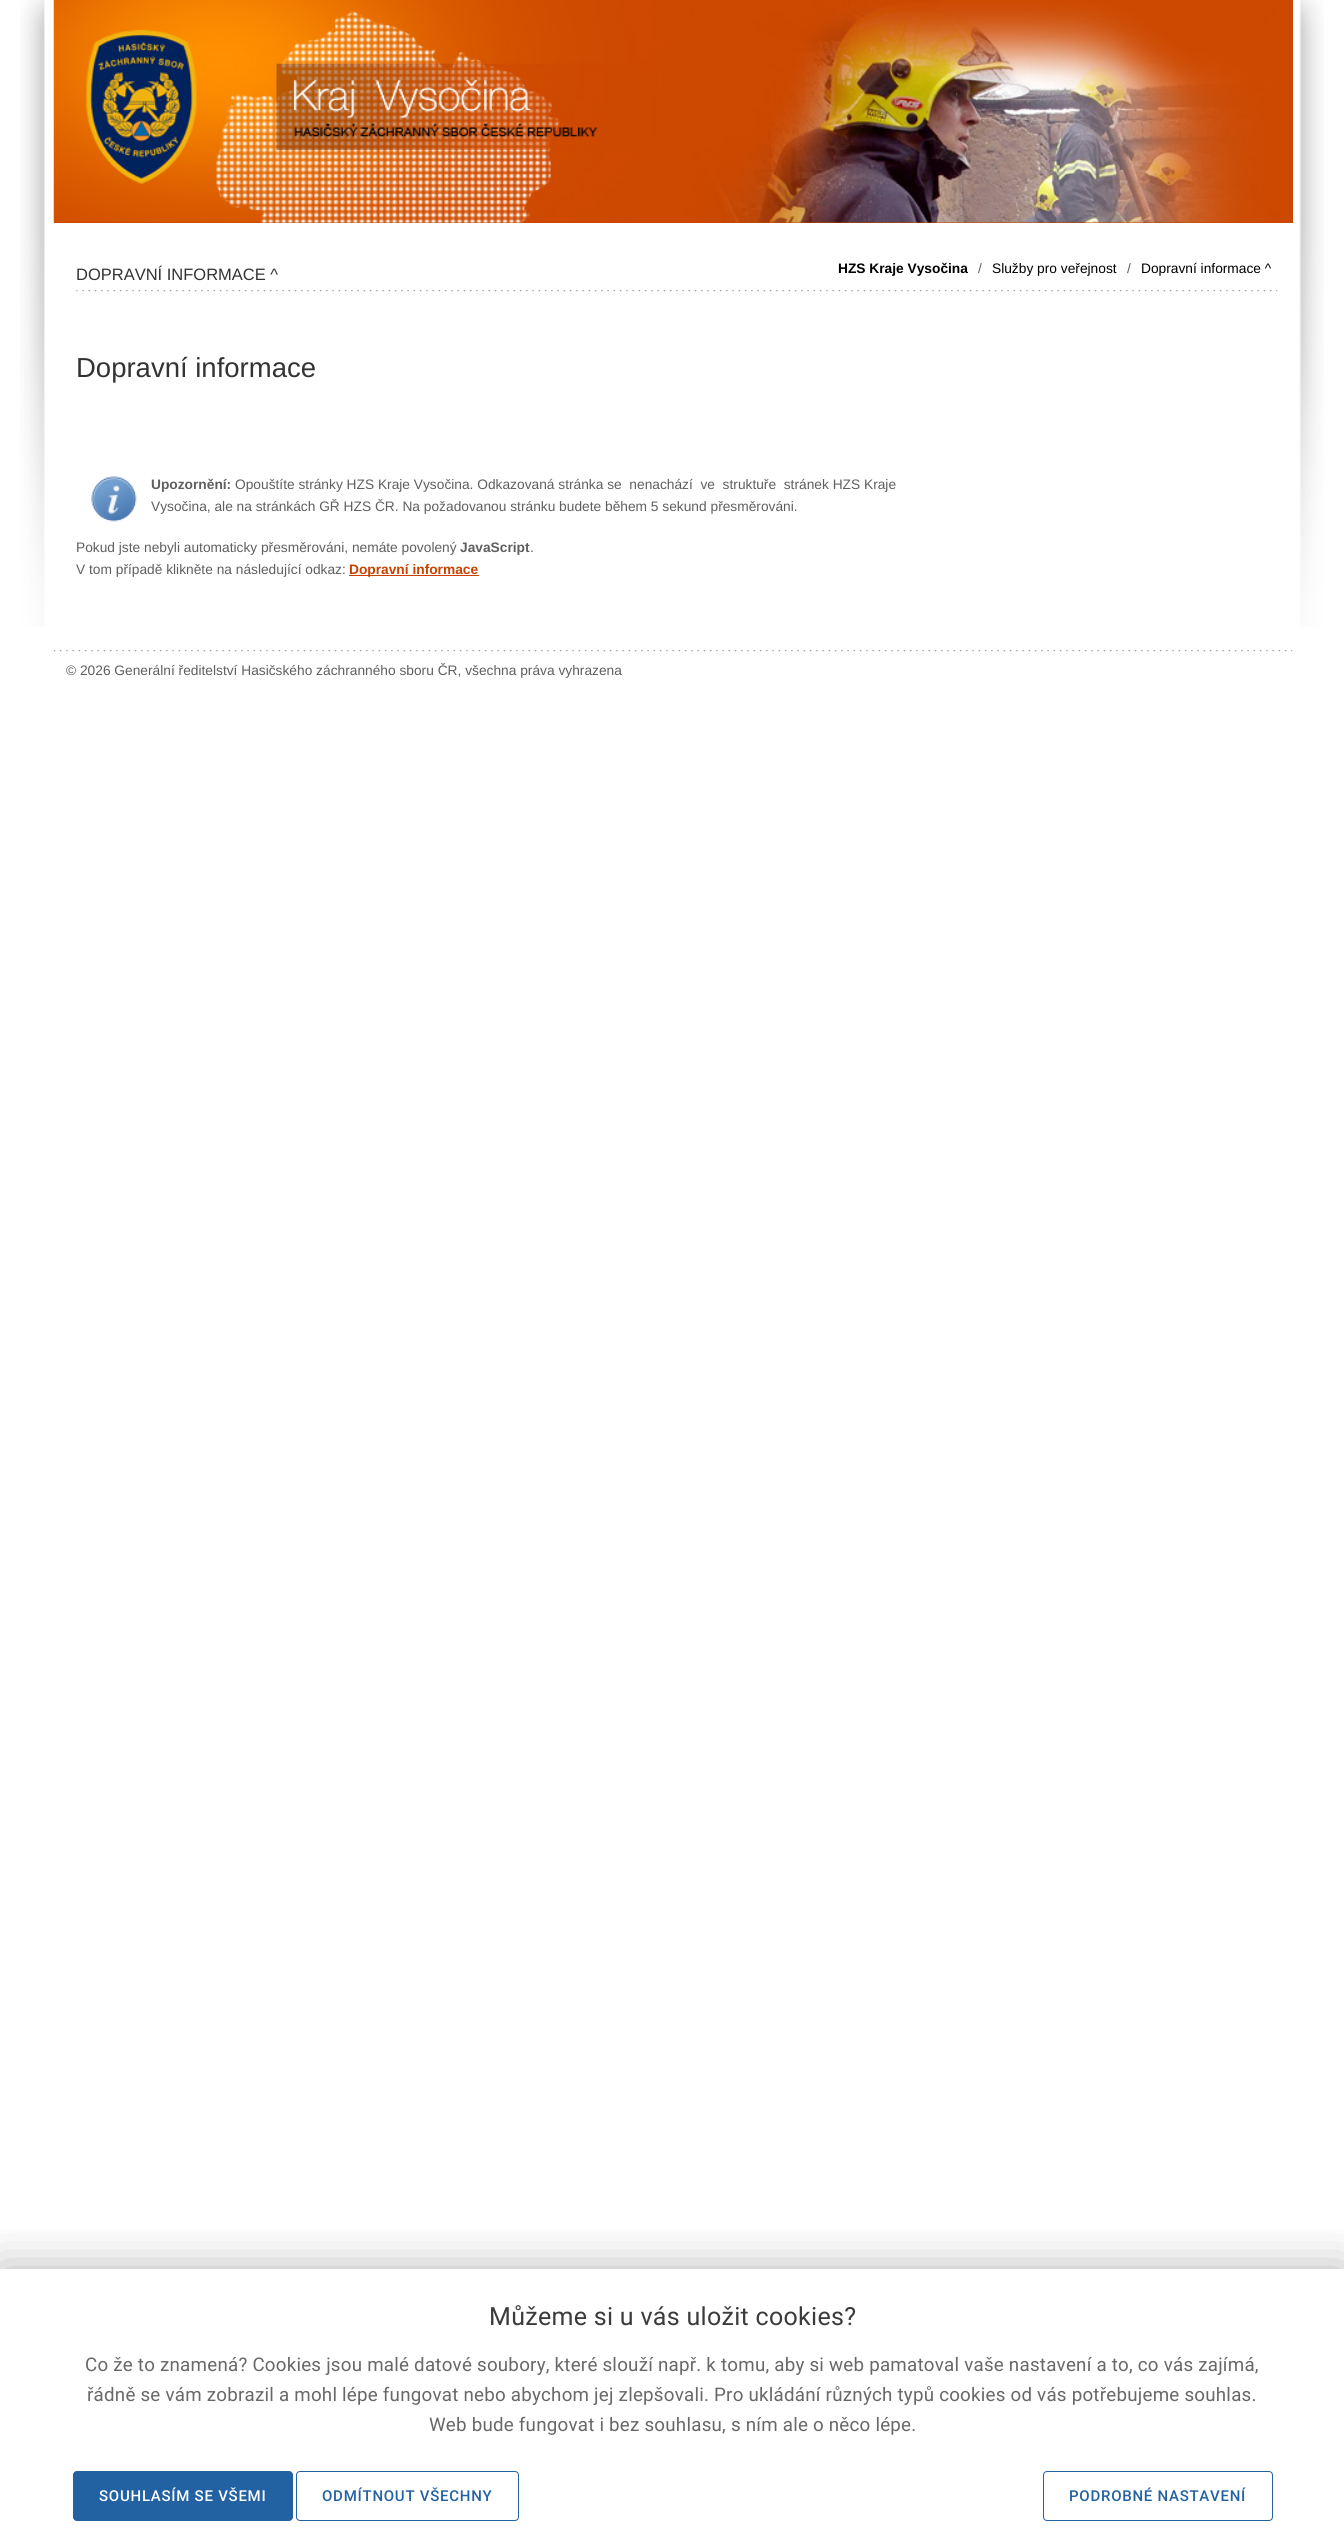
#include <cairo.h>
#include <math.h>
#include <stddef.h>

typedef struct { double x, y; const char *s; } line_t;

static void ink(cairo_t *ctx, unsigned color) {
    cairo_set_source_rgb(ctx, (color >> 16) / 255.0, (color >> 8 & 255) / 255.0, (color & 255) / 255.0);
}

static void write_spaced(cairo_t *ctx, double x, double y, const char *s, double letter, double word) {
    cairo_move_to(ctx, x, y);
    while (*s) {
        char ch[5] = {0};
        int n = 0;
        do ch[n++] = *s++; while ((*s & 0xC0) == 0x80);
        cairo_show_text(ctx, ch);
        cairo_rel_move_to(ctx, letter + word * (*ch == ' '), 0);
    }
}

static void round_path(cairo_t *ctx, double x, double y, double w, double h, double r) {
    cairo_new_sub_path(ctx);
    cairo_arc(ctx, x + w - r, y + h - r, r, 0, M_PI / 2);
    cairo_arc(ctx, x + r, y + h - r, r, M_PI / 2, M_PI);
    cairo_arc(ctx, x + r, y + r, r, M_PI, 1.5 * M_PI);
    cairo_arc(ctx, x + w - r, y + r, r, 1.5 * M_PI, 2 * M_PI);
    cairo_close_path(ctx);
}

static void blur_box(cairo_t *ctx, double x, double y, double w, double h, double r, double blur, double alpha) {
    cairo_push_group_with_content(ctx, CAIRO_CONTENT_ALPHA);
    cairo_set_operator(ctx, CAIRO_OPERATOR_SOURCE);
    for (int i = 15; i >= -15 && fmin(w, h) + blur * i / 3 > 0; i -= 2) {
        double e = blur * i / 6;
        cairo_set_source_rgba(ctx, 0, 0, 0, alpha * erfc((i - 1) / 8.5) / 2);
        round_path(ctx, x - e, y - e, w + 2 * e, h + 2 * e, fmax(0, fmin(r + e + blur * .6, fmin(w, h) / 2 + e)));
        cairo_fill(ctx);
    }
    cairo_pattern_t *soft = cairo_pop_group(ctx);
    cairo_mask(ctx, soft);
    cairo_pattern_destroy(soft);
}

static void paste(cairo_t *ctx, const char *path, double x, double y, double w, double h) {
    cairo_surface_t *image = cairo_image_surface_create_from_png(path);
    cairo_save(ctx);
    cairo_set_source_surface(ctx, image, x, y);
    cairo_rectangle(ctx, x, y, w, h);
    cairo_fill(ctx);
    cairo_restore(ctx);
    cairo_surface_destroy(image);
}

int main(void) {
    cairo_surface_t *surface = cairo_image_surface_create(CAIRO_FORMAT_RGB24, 1344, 2546);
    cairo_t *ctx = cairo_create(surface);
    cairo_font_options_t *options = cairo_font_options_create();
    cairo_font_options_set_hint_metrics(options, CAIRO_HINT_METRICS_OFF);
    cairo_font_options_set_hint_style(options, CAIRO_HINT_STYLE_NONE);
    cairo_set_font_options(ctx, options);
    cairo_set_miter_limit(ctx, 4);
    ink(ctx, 0xFFFFFF);
    cairo_paint(ctx);
    paste(ctx, "media/1.png", 20, 0, 1304, 627);
    ink(ctx, 0xC74200);
    cairo_rectangle(ctx, 54, 0, 1239, 223);
    cairo_fill(ctx);
    paste(ctx, "media/2.png", 53, 0, 1239, 223);
    paste(ctx, "media/3.png", 76, 290, 1202, 2);
    cairo_select_font_face(ctx, "Liberation Sans", CAIRO_FONT_SLANT_NORMAL, CAIRO_FONT_WEIGHT_NORMAL);
    cairo_set_font_size(ctx, 16.5);
    ink(ctx, 0x333333);
    cairo_move_to(ctx, 76, 280);
    cairo_show_text(ctx, "DOPRAVNÍ INFORMACE ^");
    cairo_select_font_face(ctx, "Liberation Sans", CAIRO_FONT_SLANT_NORMAL, CAIRO_FONT_WEIGHT_BOLD);
    cairo_set_font_size(ctx, 13.75);
    ink(ctx, 0x000000);
    cairo_move_to(ctx, 838, 273);
    cairo_show_text(ctx, "HZS Kraje Vysočina");
    cairo_select_font_face(ctx, "Liberation Sans", CAIRO_FONT_SLANT_NORMAL, CAIRO_FONT_WEIGHT_NORMAL);
    ink(ctx, 0x5F5F5F);
    cairo_move_to(ctx, 978, 273);
    cairo_show_text(ctx, "/");
    ink(ctx, 0x000000);
    cairo_move_to(ctx, 992, 273);
    cairo_show_text(ctx, "Služby pro veřejnost");
    ink(ctx, 0x5F5F5F);
    cairo_move_to(ctx, 1127, 273);
    cairo_show_text(ctx, "/");
    ink(ctx, 0x000000);
    cairo_move_to(ctx, 1141, 273);
    cairo_show_text(ctx, "Dopravní informace ^");
    cairo_set_font_size(ctx, 27.5);
    ink(ctx, 0x333333);
    cairo_move_to(ctx, 76, 377);
    cairo_show_text(ctx, "Dopravní informace");
    paste(ctx, "media/4.png", 91, 476, 46, 46);
    cairo_select_font_face(ctx, "Liberation Sans", CAIRO_FONT_SLANT_NORMAL, CAIRO_FONT_WEIGHT_BOLD);
    cairo_set_font_size(ctx, 13.75);
    ink(ctx, 0x5F5F5F);
    cairo_move_to(ctx, 151, 489);
    cairo_show_text(ctx, "Upozornění:");
    cairo_select_font_face(ctx, "Liberation Sans", CAIRO_FONT_SLANT_NORMAL, CAIRO_FONT_WEIGHT_NORMAL);
    {
        static const line_t items[] = {
            {235, 489, "Opouštíte stránky HZS Kraje Vysočina. Odkazovaná stránka se  nenachází  ve  struktuře  stránek HZS Kraje"},
            {151, 511, "Vysočina, ale na stránkách GŘ HZS ČR. Na požadovanou stránku budete během 5 sekund přesměrováni."},
            {76, 552, "Pokud jste nebyli automaticky přesměrováni, nemáte povolený"},
        };
        for (size_t i = 0; i < sizeof items / sizeof *items; i++) {
            cairo_move_to(ctx, items[i].x, items[i].y);
            cairo_show_text(ctx, items[i].s);
        }
    }
    cairo_select_font_face(ctx, "Liberation Sans", CAIRO_FONT_SLANT_NORMAL, CAIRO_FONT_WEIGHT_BOLD);
    cairo_move_to(ctx, 460, 552);
    cairo_show_text(ctx, "JavaScript");
    cairo_select_font_face(ctx, "Liberation Sans", CAIRO_FONT_SLANT_NORMAL, CAIRO_FONT_WEIGHT_NORMAL);
    cairo_move_to(ctx, 530, 552);
    cairo_show_text(ctx, ".");
    cairo_move_to(ctx, 76, 574);
    cairo_show_text(ctx, "V tom případě klikněte na následující odkaz:");
    ink(ctx, 0xC74200);
    cairo_rectangle(ctx, 349, 575, 130, 1);
    cairo_fill(ctx);
    cairo_select_font_face(ctx, "Liberation Sans", CAIRO_FONT_SLANT_NORMAL, CAIRO_FONT_WEIGHT_BOLD);
    cairo_move_to(ctx, 349, 574);
    cairo_show_text(ctx, "Dopravní informace");
    paste(ctx, "media/5.png", 53, 650, 1240, 2);
    cairo_select_font_face(ctx, "Liberation Sans", CAIRO_FONT_SLANT_NORMAL, CAIRO_FONT_WEIGHT_NORMAL);
    ink(ctx, 0x5F5F5F);
    cairo_move_to(ctx, 66, 675);
    cairo_show_text(ctx, "© 2026 Generální ředitelství Hasičského záchranného sboru ČR, všechna práva vyhrazena");
    cairo_save(ctx);
    cairo_rectangle(ctx, 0, 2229, 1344, 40);
    cairo_clip(ctx);
    ink(ctx, 0x3B3B3B);
    blur_box(ctx, 0, 2270, 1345, 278, 0, 25, 0.4);
    cairo_restore(ctx);
    cairo_select_font_face(ctx, "Roboto", CAIRO_FONT_SLANT_NORMAL, CAIRO_FONT_WEIGHT_NORMAL);
    cairo_set_font_size(ctx, 25);
    ink(ctx, 0x3B3B3B);
    write_spaced(ctx, 489, 2325, "Můžeme si u vás uložit cookies?", 0.3, 0);
    cairo_set_font_size(ctx, 18.75);
    ink(ctx, 0x686868);
    {
        static const line_t items[] = {
            {85, 2371, "Co že to znamená? Cookies jsou malé datové soubory, které slouží např. k tomu, aby si web pamatoval vaše nastavení a to, co vás zajímá,"},
            {87, 2401, "řádně se vám zobrazil a mohl lépe fungovat nebo abychom jej zlepšovali. Pro ukládání různých typů cookies od vás potřebujeme souhlas."},
            {429, 2431, "Web bude fungovat i bez souhlasu, s ním ale o něco lépe."},
        };
        for (size_t i = 0; i < sizeof items / sizeof *items; i++) {
            write_spaced(ctx, items[i].x, items[i].y, items[i].s, 0.23, 0);
        }
    }
    ink(ctx, 0x2362A2);
    round_path(ctx, 73.5, 2471.5, 219, 49, 3.5);
    cairo_fill_preserve(ctx);
    cairo_set_line_width(ctx, 1);
    cairo_stroke(ctx);
    cairo_select_font_face(ctx, "Roboto Medium", CAIRO_FONT_SLANT_NORMAL, CAIRO_FONT_WEIGHT_NORMAL);
    cairo_set_font_size(ctx, 15);
    ink(ctx, 0xFFFFFF);
    write_spaced(ctx, 99, 2501, "SOUHLASÍM SE VŠEMI", 0.75, 0);
    round_path(ctx, 296.5, 2471.5, 222, 49, 3.5);
    ink(ctx, 0x2362A2);
    cairo_stroke(ctx);
    write_spaced(ctx, 322, 2501, "ODMÍTNOUT VŠECHNY", 0.75, 0);
    round_path(ctx, 1043.5, 2471.5, 229, 49, 3.5);
    cairo_stroke(ctx);
    write_spaced(ctx, 1069, 2501, "PODROBNÉ NASTAVENÍ", 0.75, 0);
    cairo_surface_write_to_png(surface, "image.png");
    cairo_font_options_destroy(options);
    cairo_destroy(ctx);
    cairo_surface_destroy(surface);
    return 0;
}
